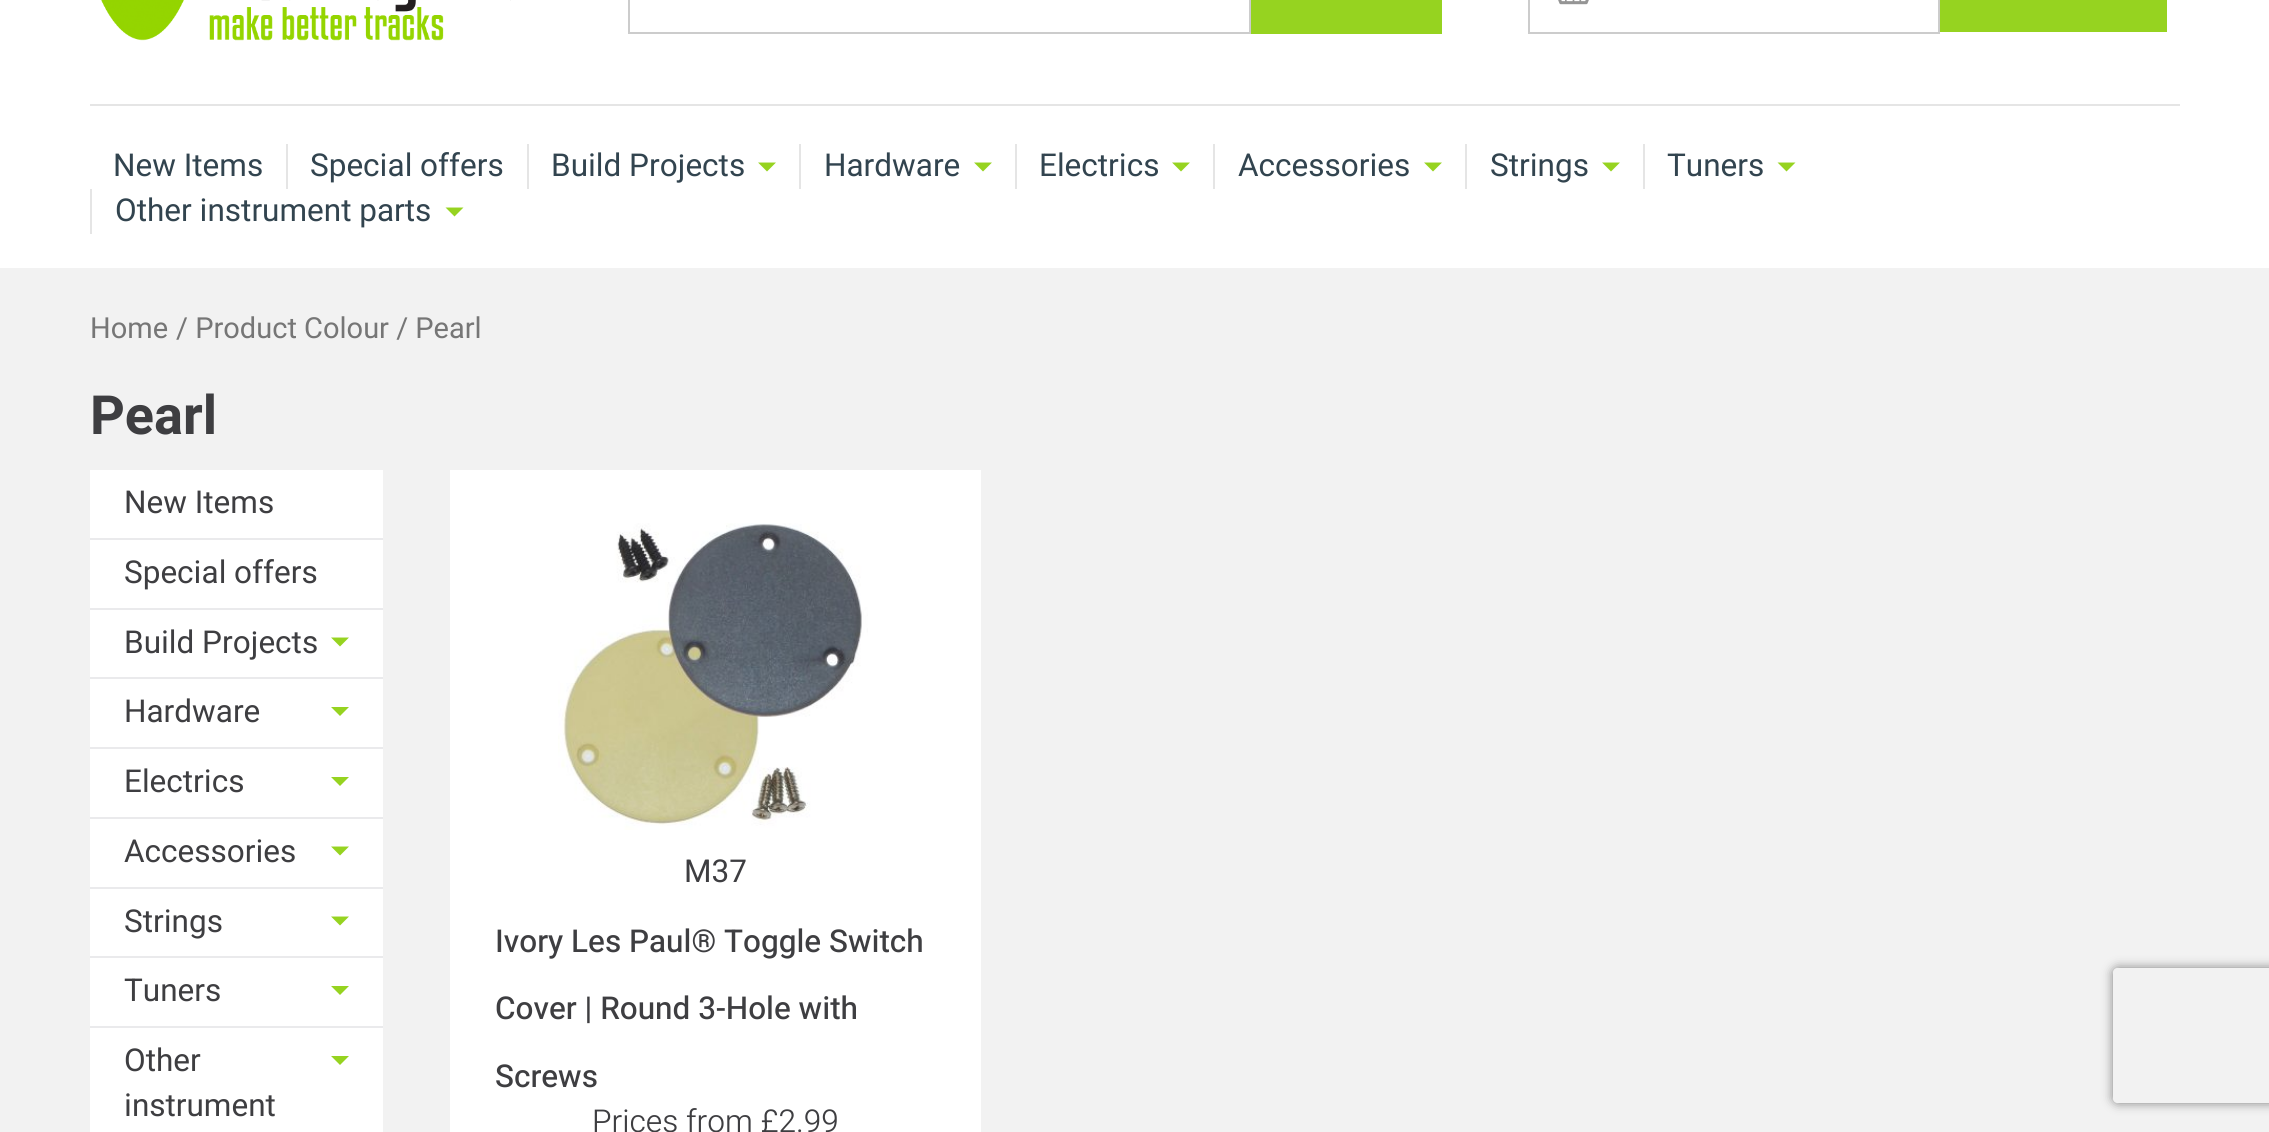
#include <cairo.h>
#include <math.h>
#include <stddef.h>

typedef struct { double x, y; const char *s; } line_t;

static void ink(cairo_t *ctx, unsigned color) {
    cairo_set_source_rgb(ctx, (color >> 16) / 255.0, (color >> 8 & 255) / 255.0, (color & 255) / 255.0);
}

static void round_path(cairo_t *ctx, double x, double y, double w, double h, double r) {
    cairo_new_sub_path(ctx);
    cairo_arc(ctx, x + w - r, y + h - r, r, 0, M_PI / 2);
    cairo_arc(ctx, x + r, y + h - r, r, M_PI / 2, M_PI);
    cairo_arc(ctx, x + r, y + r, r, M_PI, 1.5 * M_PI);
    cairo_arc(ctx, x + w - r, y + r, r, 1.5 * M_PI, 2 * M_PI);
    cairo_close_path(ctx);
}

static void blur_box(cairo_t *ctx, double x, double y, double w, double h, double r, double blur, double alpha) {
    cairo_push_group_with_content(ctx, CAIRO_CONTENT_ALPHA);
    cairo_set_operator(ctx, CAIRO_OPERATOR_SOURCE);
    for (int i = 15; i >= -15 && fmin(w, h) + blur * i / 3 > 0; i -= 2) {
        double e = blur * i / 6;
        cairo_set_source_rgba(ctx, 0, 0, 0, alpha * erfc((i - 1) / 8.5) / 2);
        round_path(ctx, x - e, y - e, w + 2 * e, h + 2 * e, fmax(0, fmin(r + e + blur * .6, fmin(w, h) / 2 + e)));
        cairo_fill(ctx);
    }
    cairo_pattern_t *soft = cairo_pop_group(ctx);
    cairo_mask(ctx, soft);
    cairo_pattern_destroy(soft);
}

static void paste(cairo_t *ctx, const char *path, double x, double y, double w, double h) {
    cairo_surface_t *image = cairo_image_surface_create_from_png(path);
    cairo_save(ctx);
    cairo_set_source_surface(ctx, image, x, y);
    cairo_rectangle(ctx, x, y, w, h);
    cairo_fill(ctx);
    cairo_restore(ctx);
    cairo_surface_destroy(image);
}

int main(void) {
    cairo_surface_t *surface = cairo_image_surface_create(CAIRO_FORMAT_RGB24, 2269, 1132);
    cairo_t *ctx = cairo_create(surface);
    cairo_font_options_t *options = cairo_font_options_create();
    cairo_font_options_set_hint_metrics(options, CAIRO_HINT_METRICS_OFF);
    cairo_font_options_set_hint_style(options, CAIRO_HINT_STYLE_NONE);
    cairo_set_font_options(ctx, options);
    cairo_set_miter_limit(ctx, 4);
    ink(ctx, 0xF2F2F2);
    cairo_paint(ctx);
    ink(ctx, 0xFFFFFF);
    cairo_rectangle(ctx, 0, 0, 2269, 268);
    cairo_fill(ctx);
    paste(ctx, "media/1.png", 101, 0, 410, 41);
    cairo_rectangle(ctx, 629, -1, 621, 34);
    ink(ctx, 0xCCCCCC);
    cairo_stroke(ctx);
    ink(ctx, 0x96D320);
    cairo_rectangle(ctx, 1251, 0, 191, 34);
    cairo_fill(ctx);
    cairo_rectangle(ctx, 1529, -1, 410, 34);
    ink(ctx, 0xCCCCCC);
    cairo_stroke(ctx);
    paste(ctx, "media/2.png", 1558, 0, 31, 5);
    ink(ctx, 0x96D320);
    cairo_rectangle(ctx, 1940, 0, 227, 32);
    cairo_fill(ctx);
    ink(ctx, 0xE5E5E5);
    cairo_rectangle(ctx, 90, 104, 2090, 2);
    cairo_fill(ctx);
    cairo_select_font_face(ctx, "Heebo", CAIRO_FONT_SLANT_NORMAL, CAIRO_FONT_WEIGHT_NORMAL);
    cairo_set_font_size(ctx, 31.5);
    ink(ctx, 0x32444F);
    cairo_move_to(ctx, 113, 176);
    cairo_show_text(ctx, "New Items");
    ink(ctx, 0xE5E5E5);
    cairo_rectangle(ctx, 286, 144, 2, 45);
    cairo_fill(ctx);
    ink(ctx, 0x32444F);
    cairo_move_to(ctx, 310, 176);
    cairo_show_text(ctx, "Special offers");
    ink(ctx, 0xE5E5E5);
    cairo_rectangle(ctx, 527, 144, 2, 45);
    cairo_fill(ctx);
    ink(ctx, 0x32444F);
    cairo_move_to(ctx, 551, 176);
    cairo_show_text(ctx, "Build Projects");
    ink(ctx, 0x96D320);
    cairo_new_path(ctx);
    cairo_move_to(ctx, 767, 171.5);
    cairo_line_to(ctx, 776, 162.5);
    cairo_line_to(ctx, 758, 162.5);
    cairo_close_path(ctx);
    cairo_fill(ctx);
    ink(ctx, 0xE5E5E5);
    cairo_rectangle(ctx, 799, 144, 2, 45);
    cairo_fill(ctx);
    ink(ctx, 0x32444F);
    cairo_move_to(ctx, 824, 176);
    cairo_show_text(ctx, "Hardware");
    ink(ctx, 0x96D320);
    cairo_new_path(ctx);
    cairo_move_to(ctx, 983, 171.5);
    cairo_line_to(ctx, 992, 162.5);
    cairo_line_to(ctx, 974, 162.5);
    cairo_close_path(ctx);
    cairo_fill(ctx);
    ink(ctx, 0xE5E5E5);
    cairo_rectangle(ctx, 1015, 144, 2, 45);
    cairo_fill(ctx);
    ink(ctx, 0x32444F);
    cairo_move_to(ctx, 1039, 176);
    cairo_show_text(ctx, "Electrics");
    ink(ctx, 0x96D320);
    cairo_new_path(ctx);
    cairo_move_to(ctx, 1181, 171.5);
    cairo_line_to(ctx, 1190, 162.5);
    cairo_line_to(ctx, 1172, 162.5);
    cairo_close_path(ctx);
    cairo_fill(ctx);
    ink(ctx, 0xE5E5E5);
    cairo_rectangle(ctx, 1213, 144, 2, 45);
    cairo_fill(ctx);
    ink(ctx, 0x32444F);
    cairo_move_to(ctx, 1238, 176);
    cairo_show_text(ctx, "Accessories");
    ink(ctx, 0x96D320);
    cairo_new_path(ctx);
    cairo_move_to(ctx, 1433, 171.5);
    cairo_line_to(ctx, 1442, 162.5);
    cairo_line_to(ctx, 1424, 162.5);
    cairo_close_path(ctx);
    cairo_fill(ctx);
    ink(ctx, 0xE5E5E5);
    cairo_rectangle(ctx, 1465, 144, 2, 45);
    cairo_fill(ctx);
    ink(ctx, 0x32444F);
    cairo_move_to(ctx, 1490, 176);
    cairo_show_text(ctx, "Strings");
    ink(ctx, 0x96D320);
    cairo_new_path(ctx);
    cairo_move_to(ctx, 1611, 171.5);
    cairo_line_to(ctx, 1620, 162.5);
    cairo_line_to(ctx, 1602, 162.5);
    cairo_close_path(ctx);
    cairo_fill(ctx);
    ink(ctx, 0xE5E5E5);
    cairo_rectangle(ctx, 1643, 144, 2, 45);
    cairo_fill(ctx);
    ink(ctx, 0x32444F);
    cairo_move_to(ctx, 1667, 176);
    cairo_show_text(ctx, "Tuners");
    ink(ctx, 0x96D320);
    cairo_new_path(ctx);
    cairo_move_to(ctx, 1786.5, 171.5);
    cairo_line_to(ctx, 1795.5, 162.5);
    cairo_line_to(ctx, 1777.5, 162.5);
    cairo_close_path(ctx);
    cairo_fill(ctx);
    ink(ctx, 0xE5E5E5);
    cairo_rectangle(ctx, 90, 189, 2, 45);
    cairo_fill(ctx);
    ink(ctx, 0x32444F);
    cairo_move_to(ctx, 115, 221);
    cairo_show_text(ctx, "Other instrument parts");
    ink(ctx, 0x96D320);
    cairo_new_path(ctx);
    cairo_move_to(ctx, 454.5, 216.5);
    cairo_line_to(ctx, 463.5, 207.5);
    cairo_line_to(ctx, 445.5, 207.5);
    cairo_close_path(ctx);
    cairo_fill(ctx);
    cairo_set_font_size(ctx, 29);
    ink(ctx, 0x767676);
    cairo_move_to(ctx, 90, 338);
    cairo_show_text(ctx, "Home");
    cairo_move_to(ctx, 176, 338);
    cairo_show_text(ctx, "/ Product Colour / Pearl");
    cairo_select_font_face(ctx, "Heebo", CAIRO_FONT_SLANT_NORMAL, CAIRO_FONT_WEIGHT_BOLD);
    cairo_set_font_size(ctx, 54);
    ink(ctx, 0x3E3E41);
    cairo_move_to(ctx, 90, 434);
    cairo_show_text(ctx, "Pearl");
    ink(ctx, 0xFFFFFF);
    cairo_rectangle(ctx, 90, 470, 293, 662);
    cairo_fill(ctx);
    cairo_select_font_face(ctx, "Heebo", CAIRO_FONT_SLANT_NORMAL, CAIRO_FONT_WEIGHT_NORMAL);
    cairo_set_font_size(ctx, 31.5);
    ink(ctx, 0x3E3E41);
    cairo_move_to(ctx, 124, 513);
    cairo_show_text(ctx, "New Items");
    ink(ctx, 0xEAEAEC);
    cairo_rectangle(ctx, 90, 538, 293, 2);
    cairo_fill(ctx);
    ink(ctx, 0x3E3E41);
    cairo_move_to(ctx, 124, 583);
    cairo_show_text(ctx, "Special offers");
    ink(ctx, 0xEAEAEC);
    cairo_rectangle(ctx, 90, 608, 293, 2);
    cairo_fill(ctx);
    ink(ctx, 0x3E3E41);
    cairo_move_to(ctx, 124, 653);
    cairo_show_text(ctx, "Build Projects");
    ink(ctx, 0x96D320);
    cairo_new_path(ctx);
    cairo_move_to(ctx, 340, 646.5);
    cairo_line_to(ctx, 349, 637.5);
    cairo_line_to(ctx, 331, 637.5);
    cairo_close_path(ctx);
    cairo_fill(ctx);
    ink(ctx, 0xEAEAEC);
    cairo_rectangle(ctx, 90, 677, 293, 2);
    cairo_fill(ctx);
    ink(ctx, 0x3E3E41);
    cairo_move_to(ctx, 124, 722);
    cairo_show_text(ctx, "Hardware");
    ink(ctx, 0x96D320);
    cairo_new_path(ctx);
    cairo_move_to(ctx, 340, 716);
    cairo_line_to(ctx, 349, 707);
    cairo_line_to(ctx, 331, 707);
    cairo_close_path(ctx);
    cairo_fill(ctx);
    ink(ctx, 0xEAEAEC);
    cairo_rectangle(ctx, 90, 747, 293, 2);
    cairo_fill(ctx);
    ink(ctx, 0x3E3E41);
    cairo_move_to(ctx, 124, 792);
    cairo_show_text(ctx, "Electrics");
    ink(ctx, 0x96D320);
    cairo_new_path(ctx);
    cairo_move_to(ctx, 340, 786);
    cairo_line_to(ctx, 349, 777);
    cairo_line_to(ctx, 331, 777);
    cairo_close_path(ctx);
    cairo_fill(ctx);
    ink(ctx, 0xEAEAEC);
    cairo_rectangle(ctx, 90, 817, 293, 2);
    cairo_fill(ctx);
    ink(ctx, 0x3E3E41);
    cairo_move_to(ctx, 124, 862);
    cairo_show_text(ctx, "Accessories");
    ink(ctx, 0x96D320);
    cairo_new_path(ctx);
    cairo_move_to(ctx, 340, 855.5);
    cairo_line_to(ctx, 349, 846.5);
    cairo_line_to(ctx, 331, 846.5);
    cairo_close_path(ctx);
    cairo_fill(ctx);
    ink(ctx, 0xEAEAEC);
    cairo_rectangle(ctx, 90, 887, 293, 2);
    cairo_fill(ctx);
    ink(ctx, 0x3E3E41);
    cairo_move_to(ctx, 124, 932);
    cairo_show_text(ctx, "Strings");
    ink(ctx, 0x96D320);
    cairo_new_path(ctx);
    cairo_move_to(ctx, 340, 925.5);
    cairo_line_to(ctx, 349, 916.5);
    cairo_line_to(ctx, 331, 916.5);
    cairo_close_path(ctx);
    cairo_fill(ctx);
    ink(ctx, 0xEAEAEC);
    cairo_rectangle(ctx, 90, 956, 293, 2);
    cairo_fill(ctx);
    ink(ctx, 0x3E3E41);
    cairo_move_to(ctx, 124, 1001);
    cairo_show_text(ctx, "Tuners");
    ink(ctx, 0x96D320);
    cairo_new_path(ctx);
    cairo_move_to(ctx, 340, 995);
    cairo_line_to(ctx, 349, 986);
    cairo_line_to(ctx, 331, 986);
    cairo_close_path(ctx);
    cairo_fill(ctx);
    ink(ctx, 0xEAEAEC);
    cairo_rectangle(ctx, 90, 1026, 293, 2);
    cairo_fill(ctx);
    ink(ctx, 0x3E3E41);
    cairo_move_to(ctx, 124, 1071);
    cairo_show_text(ctx, "Other");
    ink(ctx, 0x96D320);
    cairo_new_path(ctx);
    cairo_move_to(ctx, 340, 1065);
    cairo_line_to(ctx, 349, 1056);
    cairo_line_to(ctx, 331, 1056);
    cairo_close_path(ctx);
    cairo_fill(ctx);
    ink(ctx, 0x3E3E41);
    cairo_move_to(ctx, 124, 1116);
    cairo_show_text(ctx, "instrument");
    ink(ctx, 0xFFFFFF);
    cairo_rectangle(ctx, 450, 470, 531, 662);
    cairo_fill(ctx);
    paste(ctx, "media/3.png", 558, 523, 310, 307);
    ink(ctx, 0x3E3E41);
    cairo_move_to(ctx, 684, 882);
    cairo_show_text(ctx, "M37");
    cairo_select_font_face(ctx, "Heebo Medium", CAIRO_FONT_SLANT_NORMAL, CAIRO_FONT_WEIGHT_NORMAL);
    {
        static const line_t items[] = {
            {495, 952, "Ivory Les Paul® Toggle Switch"},
            {495, 1019, "Cover | Round 3-Hole with"},
            {495, 1087, "Screws"},
        };
        for (size_t i = 0; i < sizeof items / sizeof *items; i++) {
            cairo_move_to(ctx, items[i].x, items[i].y);
            cairo_show_text(ctx, items[i].s);
        }
    }
    cairo_select_font_face(ctx, "Heebo Light", CAIRO_FONT_SLANT_NORMAL, CAIRO_FONT_WEIGHT_NORMAL);
    cairo_move_to(ctx, 592, 1132);
    cairo_show_text(ctx, "Prices from £2.99");
    cairo_save(ctx);
    cairo_set_fill_rule(ctx, CAIRO_FILL_RULE_EVEN_ODD);
    cairo_new_path(ctx);
    cairo_move_to(ctx, 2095, 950);
    cairo_line_to(ctx, 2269, 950);
    cairo_line_to(ctx, 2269, 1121);
    cairo_line_to(ctx, 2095, 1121);
    cairo_close_path(ctx);
    cairo_move_to(ctx, 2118, 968);
    cairo_line_to(ctx, 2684, 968);
    cairo_curve_to(ctx, 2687, 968, 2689, 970, 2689, 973);
    cairo_line_to(ctx, 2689, 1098);
    cairo_curve_to(ctx, 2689, 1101, 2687, 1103, 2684, 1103);
    cairo_line_to(ctx, 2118, 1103);
    cairo_curve_to(ctx, 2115, 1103, 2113, 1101, 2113, 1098);
    cairo_line_to(ctx, 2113, 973);
    cairo_curve_to(ctx, 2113, 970, 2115, 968, 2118, 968);
    cairo_close_path(ctx);
    cairo_clip(ctx);
    ink(ctx, 0x808080);
    blur_box(ctx, 2113, 968, 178, 135, 5, 5.5, 1);
    cairo_restore(ctx);
    cairo_surface_write_to_png(surface, "image.png");
    cairo_font_options_destroy(options);
    cairo_destroy(ctx);
    cairo_surface_destroy(surface);
    return 0;
}
